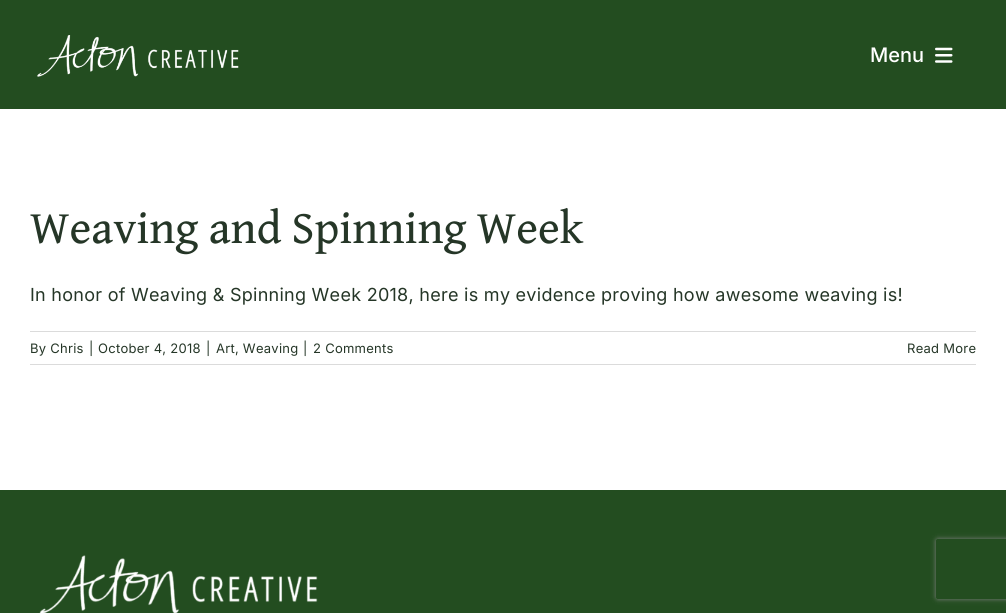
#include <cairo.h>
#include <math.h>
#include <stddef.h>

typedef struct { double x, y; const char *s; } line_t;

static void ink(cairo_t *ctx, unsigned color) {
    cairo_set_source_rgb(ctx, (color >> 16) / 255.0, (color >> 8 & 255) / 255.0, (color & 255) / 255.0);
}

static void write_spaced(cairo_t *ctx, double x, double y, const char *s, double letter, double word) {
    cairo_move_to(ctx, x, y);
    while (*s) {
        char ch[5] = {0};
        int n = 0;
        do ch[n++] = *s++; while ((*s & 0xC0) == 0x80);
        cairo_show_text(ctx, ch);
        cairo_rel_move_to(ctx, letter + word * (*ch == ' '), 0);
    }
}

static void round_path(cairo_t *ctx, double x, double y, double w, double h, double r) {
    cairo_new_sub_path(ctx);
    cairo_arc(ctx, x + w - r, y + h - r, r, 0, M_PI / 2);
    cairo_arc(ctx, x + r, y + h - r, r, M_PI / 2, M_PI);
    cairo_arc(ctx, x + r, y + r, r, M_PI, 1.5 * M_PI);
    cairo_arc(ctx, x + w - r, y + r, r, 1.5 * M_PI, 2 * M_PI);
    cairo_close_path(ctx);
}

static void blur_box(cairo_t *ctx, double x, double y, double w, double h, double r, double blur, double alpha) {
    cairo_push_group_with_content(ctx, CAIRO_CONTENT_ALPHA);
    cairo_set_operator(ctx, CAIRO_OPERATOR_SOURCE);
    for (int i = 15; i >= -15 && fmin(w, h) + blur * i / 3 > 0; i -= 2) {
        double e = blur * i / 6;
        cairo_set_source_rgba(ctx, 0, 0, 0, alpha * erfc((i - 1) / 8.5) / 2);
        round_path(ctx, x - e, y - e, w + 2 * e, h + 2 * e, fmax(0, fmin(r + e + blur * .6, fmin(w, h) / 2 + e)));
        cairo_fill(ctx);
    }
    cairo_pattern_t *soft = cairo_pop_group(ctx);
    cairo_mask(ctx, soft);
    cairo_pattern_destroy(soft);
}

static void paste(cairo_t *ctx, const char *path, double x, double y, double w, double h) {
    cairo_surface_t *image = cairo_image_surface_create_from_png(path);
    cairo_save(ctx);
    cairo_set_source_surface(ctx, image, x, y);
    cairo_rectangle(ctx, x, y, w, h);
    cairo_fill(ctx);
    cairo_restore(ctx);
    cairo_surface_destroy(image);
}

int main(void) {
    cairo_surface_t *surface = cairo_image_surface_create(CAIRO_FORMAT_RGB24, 1006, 613);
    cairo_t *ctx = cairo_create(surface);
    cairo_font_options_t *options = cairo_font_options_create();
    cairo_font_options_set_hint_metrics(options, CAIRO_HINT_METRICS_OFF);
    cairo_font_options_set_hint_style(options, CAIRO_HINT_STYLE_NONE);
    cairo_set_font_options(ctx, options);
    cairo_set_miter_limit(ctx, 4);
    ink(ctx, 0xFFFFFF);
    cairo_paint(ctx);
    ink(ctx, 0x234D20);
    cairo_rectangle(ctx, 0, 0, 1006, 109);
    cairo_fill(ctx);
    paste(ctx, "media/1.png", 37, 35, 202, 42);
    cairo_select_font_face(ctx, "Inter Medium", CAIRO_FONT_SLANT_NORMAL, CAIRO_FONT_WEIGHT_NORMAL);
    cairo_set_font_size(ctx, 20);
    ink(ctx, 0xFFFFFF);
    cairo_move_to(ctx, 870, 62);
    cairo_show_text(ctx, "Menu");
    paste(ctx, "media/2.png", 935, 47, 18, 16);
    cairo_select_font_face(ctx, "Gentium Book Plus", CAIRO_FONT_SLANT_NORMAL, CAIRO_FONT_WEIGHT_NORMAL);
    cairo_set_font_size(ctx, 46.4);
    ink(ctx, 0x253627);
    cairo_move_to(ctx, 30, 243);
    cairo_show_text(ctx, "Weaving and Spinning Week");
    cairo_select_font_face(ctx, "Inter", CAIRO_FONT_SLANT_NORMAL, CAIRO_FONT_WEIGHT_NORMAL);
    cairo_set_font_size(ctx, 18);
    write_spaced(ctx, 30, 301, "In honor of Weaving & Spinning Week 2018, here is my evidence proving how awesome weaving is!", 0.27, 0);
    ink(ctx, 0xDBDBDB);
    cairo_rectangle(ctx, 30, 331, 946, 1);
    cairo_fill(ctx);
    cairo_rectangle(ctx, 30, 364, 946, 1);
    cairo_fill(ctx);
    cairo_set_font_size(ctx, 13);
    ink(ctx, 0x253627);
    {
        static const line_t items[] = {
            {30, 353, "By Chris"},
            {89, 353, "|"},
            {98, 353, "October 4, 2018"},
            {206, 353, "|"},
            {216, 353, "Art, Weaving"},
            {303, 353, "|"},
            {313, 353, "2 Comments"},
            {907, 353, "Read More"},
        };
        for (size_t i = 0; i < sizeof items / sizeof *items; i++) {
            write_spaced(ctx, items[i].x, items[i].y, items[i].s, 0.27, 0);
        }
    }
    ink(ctx, 0x234D20);
    cairo_rectangle(ctx, 0, 490, 1006, 123);
    cairo_fill(ctx);
    paste(ctx, "media/3.png", 39, 555, 279, 58);
    cairo_save(ctx);
    cairo_set_fill_rule(ctx, CAIRO_FILL_RULE_EVEN_ODD);
    cairo_new_path(ctx);
    cairo_move_to(ctx, 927, 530);
    cairo_line_to(ctx, 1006, 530);
    cairo_line_to(ctx, 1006, 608);
    cairo_line_to(ctx, 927, 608);
    cairo_close_path(ctx);
    cairo_move_to(ctx, 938, 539);
    cairo_line_to(ctx, 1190, 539);
    cairo_curve_to(ctx, 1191, 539, 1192, 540, 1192, 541);
    cairo_line_to(ctx, 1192, 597);
    cairo_curve_to(ctx, 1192, 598, 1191, 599, 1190, 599);
    cairo_line_to(ctx, 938, 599);
    cairo_curve_to(ctx, 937, 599, 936, 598, 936, 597);
    cairo_line_to(ctx, 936, 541);
    cairo_curve_to(ctx, 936, 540, 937, 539, 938, 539);
    cairo_close_path(ctx);
    cairo_clip(ctx);
    ink(ctx, 0x808080);
    blur_box(ctx, 936, 539, 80, 60, 2, 2.5, 1);
    cairo_restore(ctx);
    cairo_surface_write_to_png(surface, "image.png");
    cairo_font_options_destroy(options);
    cairo_destroy(ctx);
    cairo_surface_destroy(surface);
    return 0;
}
